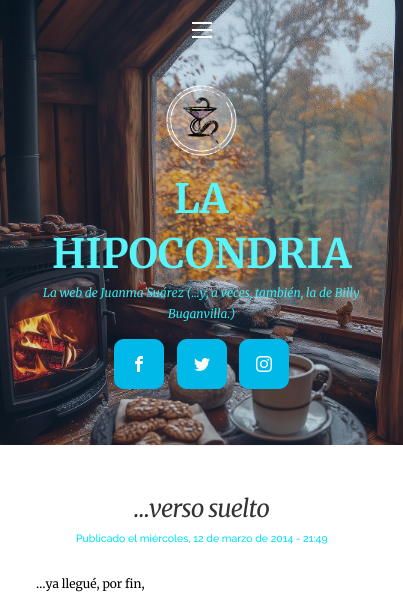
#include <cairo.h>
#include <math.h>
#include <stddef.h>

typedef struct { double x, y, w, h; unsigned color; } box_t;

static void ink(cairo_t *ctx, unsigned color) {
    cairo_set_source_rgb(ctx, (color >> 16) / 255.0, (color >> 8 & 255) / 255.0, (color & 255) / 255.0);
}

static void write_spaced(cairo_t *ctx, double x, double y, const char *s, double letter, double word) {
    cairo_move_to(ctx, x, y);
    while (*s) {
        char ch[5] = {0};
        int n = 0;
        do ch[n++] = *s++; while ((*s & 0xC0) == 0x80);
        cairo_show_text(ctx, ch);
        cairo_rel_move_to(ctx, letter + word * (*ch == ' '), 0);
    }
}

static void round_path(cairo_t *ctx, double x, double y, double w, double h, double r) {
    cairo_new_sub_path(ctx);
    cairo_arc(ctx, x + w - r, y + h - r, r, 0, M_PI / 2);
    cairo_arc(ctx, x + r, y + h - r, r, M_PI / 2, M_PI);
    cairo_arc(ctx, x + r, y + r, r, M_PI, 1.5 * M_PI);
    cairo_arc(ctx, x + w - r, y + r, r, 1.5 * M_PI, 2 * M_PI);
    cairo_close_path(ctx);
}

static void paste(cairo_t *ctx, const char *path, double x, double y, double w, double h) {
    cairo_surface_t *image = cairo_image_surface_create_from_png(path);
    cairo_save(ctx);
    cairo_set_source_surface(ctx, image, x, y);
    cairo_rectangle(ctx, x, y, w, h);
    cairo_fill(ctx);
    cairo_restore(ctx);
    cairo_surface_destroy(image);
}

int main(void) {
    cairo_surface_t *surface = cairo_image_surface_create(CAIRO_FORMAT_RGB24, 403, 599);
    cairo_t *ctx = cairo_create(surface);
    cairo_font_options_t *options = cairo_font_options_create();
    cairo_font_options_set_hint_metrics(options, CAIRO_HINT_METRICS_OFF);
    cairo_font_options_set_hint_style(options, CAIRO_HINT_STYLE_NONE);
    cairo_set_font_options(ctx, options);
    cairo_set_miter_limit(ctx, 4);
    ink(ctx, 0xFFFFFF);
    cairo_paint(ctx);
    paste(ctx, "media/1.png", 0, 0, 403, 445);
    {
        static const box_t items[] = {
            {192, 29, 20, 2, 0xFFFFFF},
            {192, 22, 20, 2, 0xFFFFFF},
            {192, 36, 20, 2, 0xFFFFFF},
        };
        for (size_t i = 0; i < sizeof items / sizeof *items; i++) {
            ink(ctx, items[i].color);
            cairo_rectangle(ctx, items[i].x, items[i].y, items[i].w, items[i].h);
            cairo_fill(ctx);
        }
    }
    paste(ctx, "media/2.png", 166, 85, 71, 71);
    cairo_select_font_face(ctx, "Merriweather", CAIRO_FONT_SLANT_NORMAL, CAIRO_FONT_WEIGHT_BOLD);
    cairo_set_font_size(ctx, 40.5);
    ink(ctx, 0x57F4F9);
    cairo_move_to(ctx, 174, 213);
    cairo_show_text(ctx, "LA");
    cairo_move_to(ctx, 52, 268);
    cairo_show_text(ctx, "HIPOCONDRIA");
    cairo_select_font_face(ctx, "Merriweather Light", CAIRO_FONT_SLANT_ITALIC, CAIRO_FONT_WEIGHT_NORMAL);
    cairo_set_font_size(ctx, 12);
    ink(ctx, 0x30EBF2);
    cairo_move_to(ctx, 43, 297);
    cairo_show_text(ctx, "La web de Juanma Suárez (…y, a veces, también, la de Billy");
    cairo_move_to(ctx, 168, 318);
    cairo_show_text(ctx, "Buganvilla.)");
    ink(ctx, 0x00B9E8);
    round_path(ctx, 114, 339, 50, 50, 10);
    cairo_fill(ctx);
    paste(ctx, "media/3.png", 135, 356, 8, 16);
    round_path(ctx, 177, 339, 50, 50, 10);
    cairo_fill(ctx);
    paste(ctx, "media/4.png", 194, 358, 16, 13);
    round_path(ctx, 239, 339, 50, 50, 10);
    cairo_fill(ctx);
    paste(ctx, "media/5.png", 256, 356, 16, 16);
    paste(ctx, "media/6.png", 75, 445, 251, 1);
    cairo_set_font_size(ctx, 24);
    ink(ctx, 0x333333);
    write_spaced(ctx, 134, 517, "…verso suelto", -0.75, 0);
    cairo_select_font_face(ctx, "Raleway Medium", CAIRO_FONT_SLANT_NORMAL, CAIRO_FONT_WEIGHT_NORMAL);
    cairo_set_font_size(ctx, 10.5);
    ink(ctx, 0x00E4F4);
    cairo_move_to(ctx, 76, 542);
    cairo_show_text(ctx, "Publicado el miércoles, 12 de marzo de 2014 - 21:49");
    cairo_select_font_face(ctx, "Merriweather", CAIRO_FONT_SLANT_NORMAL, CAIRO_FONT_WEIGHT_NORMAL);
    cairo_set_font_size(ctx, 12);
    ink(ctx, 0x000000);
    cairo_move_to(ctx, 36, 588);
    cairo_show_text(ctx, "…ya llegué, por fin,");
    cairo_surface_write_to_png(surface, "image.png");
    cairo_font_options_destroy(options);
    cairo_destroy(ctx);
    cairo_surface_destroy(surface);
    return 0;
}
